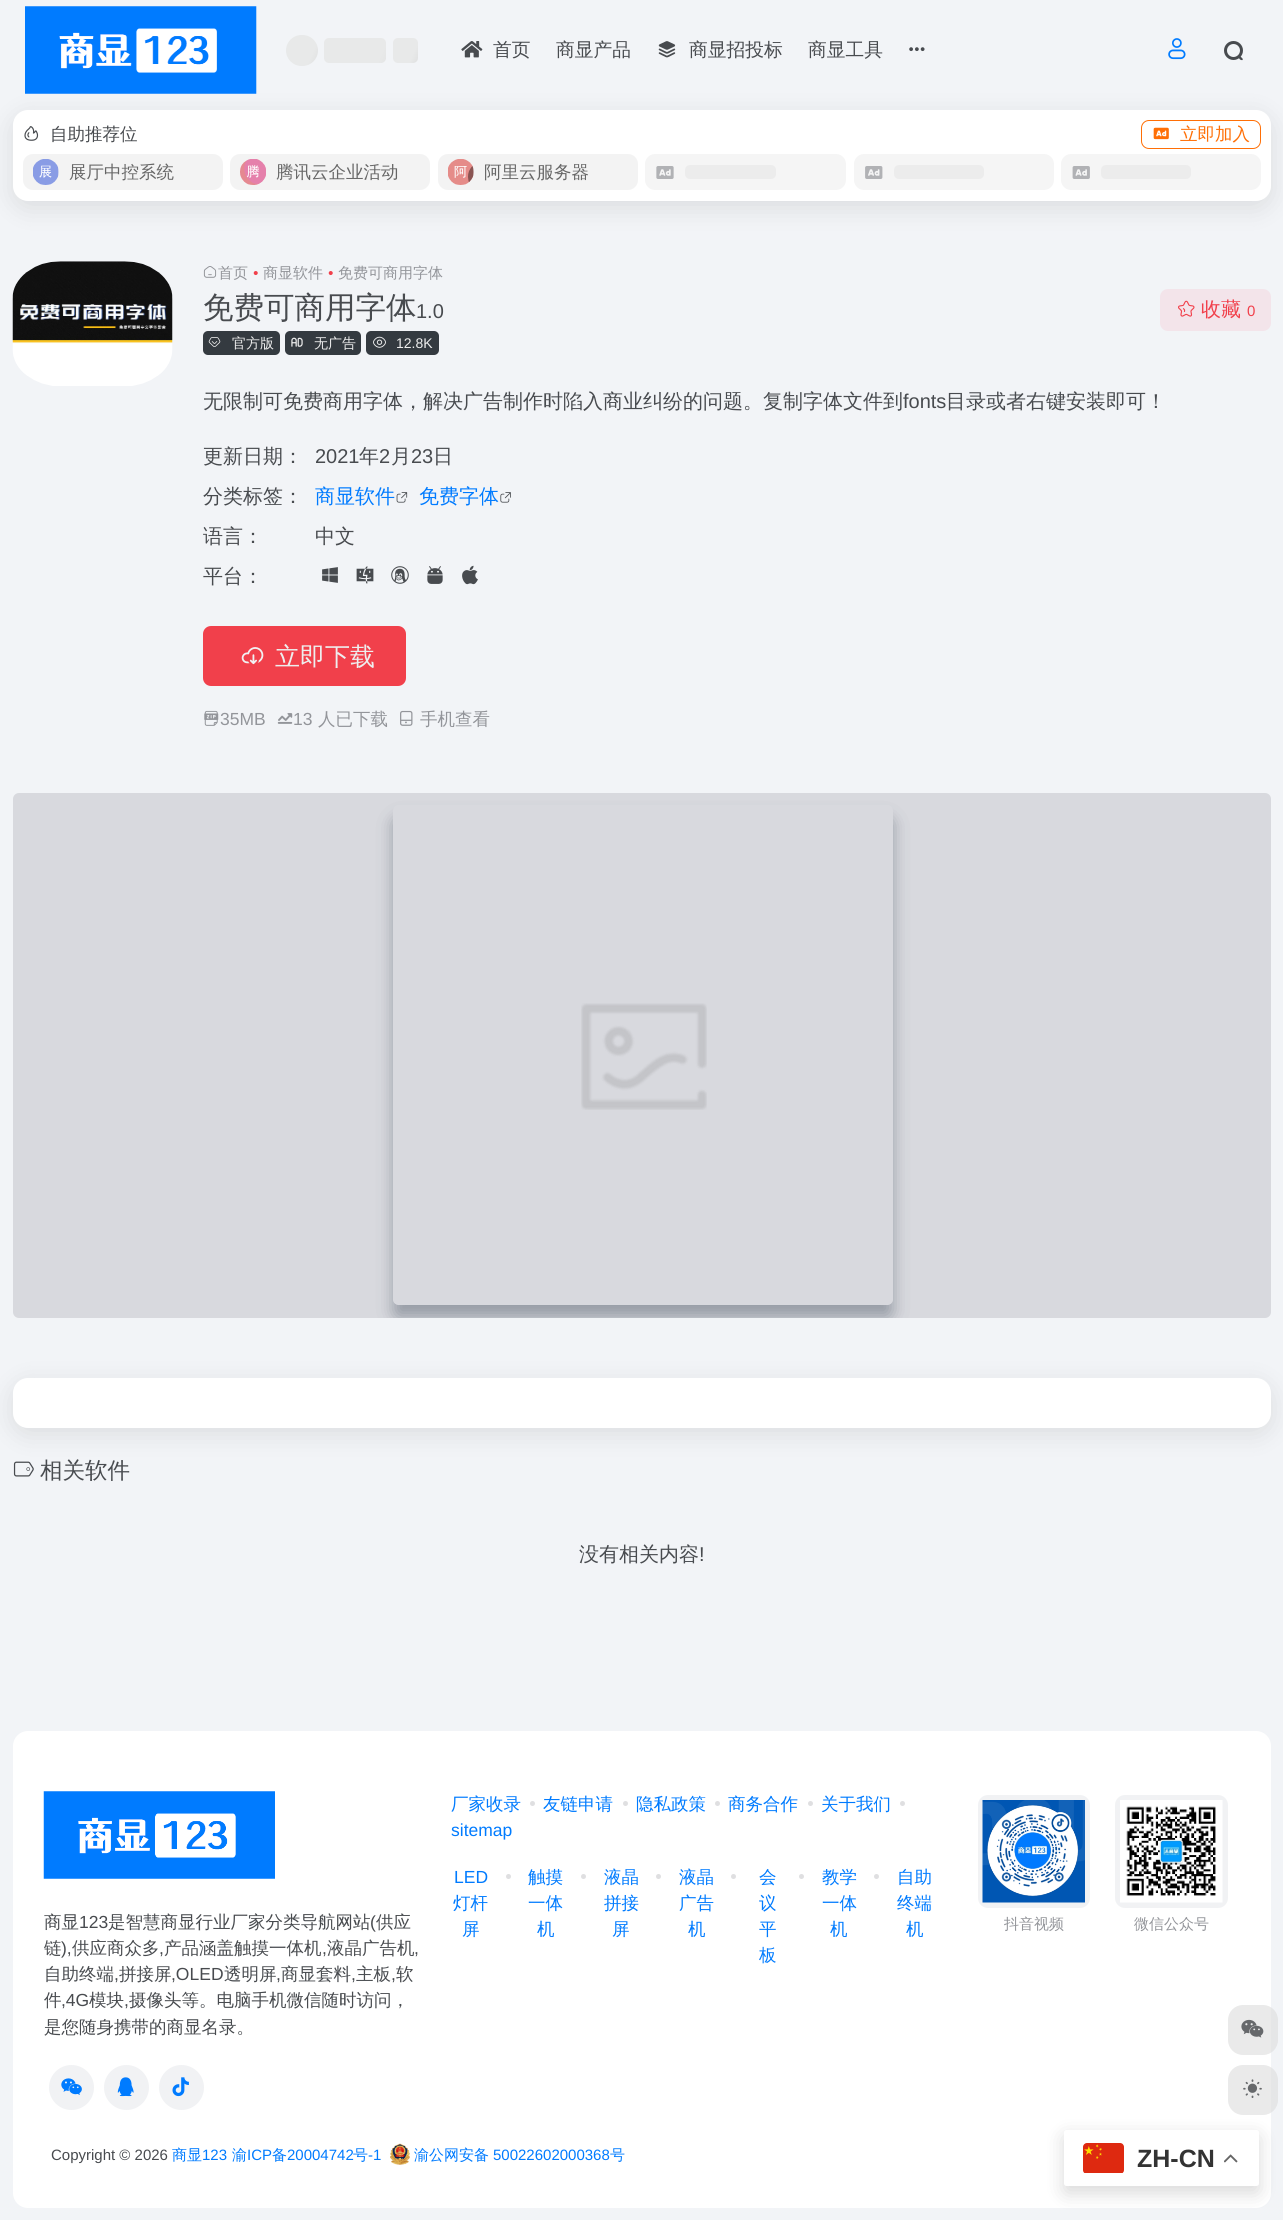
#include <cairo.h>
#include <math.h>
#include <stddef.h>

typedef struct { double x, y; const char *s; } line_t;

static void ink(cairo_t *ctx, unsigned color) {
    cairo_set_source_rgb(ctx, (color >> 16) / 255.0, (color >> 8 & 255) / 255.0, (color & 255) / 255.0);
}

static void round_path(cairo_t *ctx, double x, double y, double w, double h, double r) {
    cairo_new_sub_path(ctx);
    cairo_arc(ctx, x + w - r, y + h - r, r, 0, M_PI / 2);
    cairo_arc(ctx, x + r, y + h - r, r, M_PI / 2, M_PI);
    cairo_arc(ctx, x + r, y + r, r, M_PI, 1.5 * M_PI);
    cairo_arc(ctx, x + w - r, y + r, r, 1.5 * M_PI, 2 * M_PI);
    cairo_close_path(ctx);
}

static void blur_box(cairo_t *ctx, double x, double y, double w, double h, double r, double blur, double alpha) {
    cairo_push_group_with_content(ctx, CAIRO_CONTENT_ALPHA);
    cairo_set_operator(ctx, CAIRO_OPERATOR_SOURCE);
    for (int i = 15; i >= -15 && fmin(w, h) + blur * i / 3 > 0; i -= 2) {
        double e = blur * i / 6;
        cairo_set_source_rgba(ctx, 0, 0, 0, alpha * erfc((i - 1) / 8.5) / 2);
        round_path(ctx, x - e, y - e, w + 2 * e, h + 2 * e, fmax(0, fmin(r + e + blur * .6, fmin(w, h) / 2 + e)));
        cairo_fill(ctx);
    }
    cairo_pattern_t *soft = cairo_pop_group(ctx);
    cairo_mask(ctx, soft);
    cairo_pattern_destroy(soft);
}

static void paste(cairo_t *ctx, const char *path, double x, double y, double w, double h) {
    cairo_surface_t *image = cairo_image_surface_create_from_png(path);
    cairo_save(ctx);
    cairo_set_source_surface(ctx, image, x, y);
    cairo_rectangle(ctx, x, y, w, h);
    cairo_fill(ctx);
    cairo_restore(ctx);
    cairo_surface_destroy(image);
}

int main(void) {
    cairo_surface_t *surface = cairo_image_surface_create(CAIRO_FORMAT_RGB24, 1283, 2220);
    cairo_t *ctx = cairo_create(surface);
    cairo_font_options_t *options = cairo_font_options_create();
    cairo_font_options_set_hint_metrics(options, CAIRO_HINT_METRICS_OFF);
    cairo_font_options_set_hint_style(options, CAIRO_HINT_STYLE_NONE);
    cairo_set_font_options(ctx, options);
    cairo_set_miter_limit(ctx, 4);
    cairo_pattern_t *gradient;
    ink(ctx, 0xF2F4F7);
    cairo_paint(ctx);
    ink(ctx, 0x000000);
    blur_box(ctx, 13, 116, 1258, 92, 15, 12.5, 0.1);
    paste(ctx, "media/1.png", 25, 6, 232, 88);
    gradient = cairo_pattern_create_linear(291, 24, 406, 77);
    cairo_pattern_add_color_stop_rgba(gradient, 0.25, 0.91, 0.914, 0.914, 1);
    cairo_pattern_add_color_stop_rgba(gradient, 0.37, 0.859, 0.863, 0.863, 1);
    cairo_pattern_add_color_stop_rgba(gradient, 0.63, 0.91, 0.914, 0.914, 1);
    cairo_set_source(ctx, gradient);
    cairo_pattern_destroy(gradient);
    round_path(ctx, 286, 35, 32, 31, 15.5);
    cairo_fill(ctx);
    gradient = cairo_pattern_create_linear(341, -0.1, 556, 100);
    cairo_pattern_add_color_stop_rgba(gradient, 0.25, 0.91, 0.914, 0.914, 1);
    cairo_pattern_add_color_stop_rgba(gradient, 0.37, 0.859, 0.863, 0.863, 1);
    cairo_pattern_add_color_stop_rgba(gradient, 0.63, 0.91, 0.914, 0.914, 1);
    cairo_set_source(ctx, gradient);
    cairo_pattern_destroy(gradient);
    round_path(ctx, 324, 38, 62, 25, 5);
    cairo_fill(ctx);
    gradient = cairo_pattern_create_linear(397, 29, 488, 71);
    cairo_pattern_add_color_stop_rgba(gradient, 0.25, 0.91, 0.914, 0.914, 1);
    cairo_pattern_add_color_stop_rgba(gradient, 0.37, 0.859, 0.863, 0.863, 1);
    cairo_pattern_add_color_stop_rgba(gradient, 0.63, 0.91, 0.914, 0.914, 1);
    cairo_set_source(ctx, gradient);
    cairo_pattern_destroy(gradient);
    round_path(ctx, 393, 38, 25, 25, 5);
    cairo_fill(ctx);
    paste(ctx, "media/2.png", 461, 41, 22, 17);
    cairo_select_font_face(ctx, "WenQuanYi Zen Hei Medium", CAIRO_FONT_SLANT_NORMAL, CAIRO_FONT_WEIGHT_NORMAL);
    cairo_set_font_size(ctx, 18.75);
    ink(ctx, 0x484B4F);
    cairo_move_to(ctx, 493, 56);
    cairo_show_text(ctx, "首页");
    cairo_move_to(ctx, 556, 56);
    cairo_show_text(ctx, "商显产品");
    paste(ctx, "media/3.png", 658, 41, 18, 17);
    cairo_move_to(ctx, 689, 56);
    cairo_show_text(ctx, "商显招投标");
    cairo_move_to(ctx, 808, 56);
    cairo_show_text(ctx, "商显工具");
    paste(ctx, "media/4.png", 909, 47, 16, 5);
    paste(ctx, "media/5.png", 1168, 38, 18, 22);
    cairo_arc(ctx, 1233.5, 50.5, 8, 0, 2 * M_PI);
    cairo_set_line_width(ctx, 3);
    cairo_stroke(ctx);
    cairo_new_path(ctx);
    cairo_move_to(ctx, 1240.5, 56.5);
    cairo_line_to(ctx, 1242.5, 58.5);
    cairo_curve_to(ctx, 1243.5, 60.5, 1241.5, 60.5, 1240, 59.5);
    cairo_line_to(ctx, 1238.5, 57.5);
    cairo_curve_to(ctx, 1238, 56.5, 1239.5, 55.5, 1240.5, 56.5);
    cairo_close_path(ctx);
    cairo_fill(ctx);
    ink(ctx, 0xFFFFFF);
    round_path(ctx, 13, 110, 1258, 91, 15);
    cairo_fill(ctx);
    paste(ctx, "media/6.png", 24, 126, 15, 15);
    cairo_set_font_size(ctx, 17.5);
    ink(ctx, 0x484B4F);
    cairo_move_to(ctx, 50, 140);
    cairo_show_text(ctx, "自助推荐位");
    round_path(ctx, 1141.5, 120.5, 119, 28, 7.5);
    ink(ctx, 0xFF6F06);
    cairo_set_line_width(ctx, 1);
    cairo_stroke(ctx);
    paste(ctx, "media/7.png", 1153, 127, 16, 13);
    cairo_move_to(ctx, 1180, 140);
    cairo_show_text(ctx, "立即加入");
    ink(ctx, 0xF3F3F3);
    round_path(ctx, 23, 154, 200, 36, 10);
    cairo_fill(ctx);
    paste(ctx, "media/8.png", 33, 159, 26, 26);
    ink(ctx, 0x666666);
    cairo_move_to(ctx, 69, 178);
    cairo_show_text(ctx, "展厅中控系统");
    ink(ctx, 0xF3F3F3);
    round_path(ctx, 230, 154, 200, 36, 10);
    cairo_fill(ctx);
    paste(ctx, "media/9.png", 240, 159, 26, 26);
    ink(ctx, 0x666666);
    cairo_move_to(ctx, 276, 178);
    cairo_show_text(ctx, "腾讯云企业活动");
    ink(ctx, 0xF3F3F3);
    round_path(ctx, 438, 154, 200, 36, 10);
    cairo_fill(ctx);
    paste(ctx, "media/10.png", 448, 159, 26, 26);
    ink(ctx, 0x666666);
    cairo_move_to(ctx, 484, 178);
    cairo_show_text(ctx, "阿里云服务器");
    ink(ctx, 0xF5F5F5);
    round_path(ctx, 645, 154, 201, 36, 10);
    cairo_fill(ctx);
    paste(ctx, "media/11.png", 656, 166, 18, 13);
    ink(ctx, 0xECECEC);
    round_path(ctx, 685, 165, 91, 14, 5);
    cairo_fill(ctx);
    ink(ctx, 0xF5F5F5);
    round_path(ctx, 854, 154, 200, 36, 10);
    cairo_fill(ctx);
    paste(ctx, "media/12.png", 865, 166, 18, 13);
    ink(ctx, 0xECECEC);
    round_path(ctx, 894, 165, 90, 14, 5);
    cairo_fill(ctx);
    ink(ctx, 0xF5F5F5);
    round_path(ctx, 1061, 154, 200, 36, 10);
    cairo_fill(ctx);
    paste(ctx, "media/13.png", 1072, 166, 18, 13);
    ink(ctx, 0xECECEC);
    round_path(ctx, 1101, 165, 90, 14, 5);
    cairo_fill(ctx);
    paste(ctx, "media/14.png", 12, 261, 161, 125);
    paste(ctx, "media/15.png", 203, 266, 14, 12);
    cairo_set_font_size(ctx, 15);
    ink(ctx, 0x93959A);
    cairo_move_to(ctx, 218, 278);
    cairo_show_text(ctx, "首页");
    cairo_select_font_face(ctx, "Liberation Sans", CAIRO_FONT_SLANT_ITALIC, CAIRO_FONT_WEIGHT_NORMAL);
    ink(ctx, 0xF1404B);
    cairo_move_to(ctx, 253, 278);
    cairo_show_text(ctx, "•");
    cairo_select_font_face(ctx, "WenQuanYi Zen Hei Medium", CAIRO_FONT_SLANT_NORMAL, CAIRO_FONT_WEIGHT_NORMAL);
    ink(ctx, 0x93959A);
    cairo_move_to(ctx, 263, 278);
    cairo_show_text(ctx, "商显软件");
    cairo_select_font_face(ctx, "Liberation Sans", CAIRO_FONT_SLANT_ITALIC, CAIRO_FONT_WEIGHT_NORMAL);
    ink(ctx, 0xF1404B);
    cairo_move_to(ctx, 328, 278);
    cairo_show_text(ctx, "•");
    cairo_select_font_face(ctx, "WenQuanYi Zen Hei Medium", CAIRO_FONT_SLANT_NORMAL, CAIRO_FONT_WEIGHT_NORMAL);
    ink(ctx, 0x93959A);
    cairo_move_to(ctx, 338, 278);
    cairo_show_text(ctx, "免费可商用字体");
    cairo_set_font_size(ctx, 30.5);
    ink(ctx, 0x484B4F);
    cairo_move_to(ctx, 203, 318);
    cairo_show_text(ctx, "免费可商用字体");
    cairo_select_font_face(ctx, "Liberation Sans", CAIRO_FONT_SLANT_NORMAL, CAIRO_FONT_WEIGHT_NORMAL);
    cairo_set_font_size(ctx, 20);
    cairo_move_to(ctx, 416, 318);
    cairo_show_text(ctx, "1.0");
    ink(ctx, 0x343A40);
    round_path(ctx, 203, 331, 77, 24, 5);
    cairo_fill(ctx);
    paste(ctx, "media/16.png", 208, 337, 13, 10);
    cairo_select_font_face(ctx, "WenQuanYi Zen Hei Medium", CAIRO_FONT_SLANT_NORMAL, CAIRO_FONT_WEIGHT_NORMAL);
    cairo_set_font_size(ctx, 14);
    ink(ctx, 0xEEEEEE);
    cairo_move_to(ctx, 232, 348);
    cairo_show_text(ctx, "官方版");
    ink(ctx, 0x343A40);
    round_path(ctx, 285, 331, 76, 24, 5);
    cairo_fill(ctx);
    paste(ctx, "media/17.png", 291, 337, 12, 10);
    ink(ctx, 0xEEEEEE);
    cairo_move_to(ctx, 314, 348);
    cairo_show_text(ctx, "无广告");
    ink(ctx, 0x343A40);
    round_path(ctx, 366, 331, 73, 24, 5);
    cairo_fill(ctx);
    paste(ctx, "media/18.png", 373, 336, 13, 12);
    cairo_select_font_face(ctx, "Liberation Sans", CAIRO_FONT_SLANT_NORMAL, CAIRO_FONT_WEIGHT_NORMAL);
    ink(ctx, 0xEEEEEE);
    cairo_move_to(ctx, 396, 348);
    cairo_show_text(ctx, "12.8K");
    ink(ctx, 0xF3E4EA);
    round_path(ctx, 1160, 289, 111, 42, 8);
    cairo_fill(ctx);
    paste(ctx, "media/19.png", 1178, 300, 17, 17);
    cairo_select_font_face(ctx, "WenQuanYi Zen Hei Medium", CAIRO_FONT_SLANT_NORMAL, CAIRO_FONT_WEIGHT_NORMAL);
    cairo_set_font_size(ctx, 20);
    ink(ctx, 0xF1404B);
    cairo_move_to(ctx, 1201, 316);
    cairo_show_text(ctx, "收藏");
    cairo_select_font_face(ctx, "Liberation Sans", CAIRO_FONT_SLANT_NORMAL, CAIRO_FONT_WEIGHT_NORMAL);
    cairo_set_font_size(ctx, 15);
    cairo_move_to(ctx, 1247, 316);
    cairo_show_text(ctx, "0");
    cairo_select_font_face(ctx, "WenQuanYi Zen Hei Medium", CAIRO_FONT_SLANT_NORMAL, CAIRO_FONT_WEIGHT_NORMAL);
    cairo_set_font_size(ctx, 20);
    ink(ctx, 0x484B4F);
    cairo_move_to(ctx, 203, 408);
    cairo_show_text(ctx, "无限制可免费商用字体，解决广告制作时陷入商业纠纷的问题。复制字体文件到");
    cairo_select_font_face(ctx, "Liberation Sans", CAIRO_FONT_SLANT_NORMAL, CAIRO_FONT_WEIGHT_NORMAL);
    cairo_move_to(ctx, 903, 408);
    cairo_show_text(ctx, "fonts");
    cairo_select_font_face(ctx, "WenQuanYi Zen Hei Medium", CAIRO_FONT_SLANT_NORMAL, CAIRO_FONT_WEIGHT_NORMAL);
    cairo_move_to(ctx, 946, 408);
    cairo_show_text(ctx, "目录或者右键安装即可！");
    cairo_move_to(ctx, 203, 463);
    cairo_show_text(ctx, "更新日期：");
    cairo_select_font_face(ctx, "Liberation Sans", CAIRO_FONT_SLANT_NORMAL, CAIRO_FONT_WEIGHT_NORMAL);
    cairo_move_to(ctx, 315, 463);
    cairo_show_text(ctx, "2021");
    cairo_select_font_face(ctx, "WenQuanYi Zen Hei Medium", CAIRO_FONT_SLANT_NORMAL, CAIRO_FONT_WEIGHT_NORMAL);
    cairo_move_to(ctx, 359, 463);
    cairo_show_text(ctx, "年");
    cairo_select_font_face(ctx, "Liberation Sans", CAIRO_FONT_SLANT_NORMAL, CAIRO_FONT_WEIGHT_NORMAL);
    cairo_move_to(ctx, 379, 463);
    cairo_show_text(ctx, "2");
    cairo_select_font_face(ctx, "WenQuanYi Zen Hei Medium", CAIRO_FONT_SLANT_NORMAL, CAIRO_FONT_WEIGHT_NORMAL);
    cairo_move_to(ctx, 391, 463);
    cairo_show_text(ctx, "月");
    cairo_select_font_face(ctx, "Liberation Sans", CAIRO_FONT_SLANT_NORMAL, CAIRO_FONT_WEIGHT_NORMAL);
    cairo_move_to(ctx, 411, 463);
    cairo_show_text(ctx, "23");
    cairo_select_font_face(ctx, "WenQuanYi Zen Hei Medium", CAIRO_FONT_SLANT_NORMAL, CAIRO_FONT_WEIGHT_NORMAL);
    cairo_move_to(ctx, 433, 463);
    cairo_show_text(ctx, "日");
    cairo_move_to(ctx, 203, 503);
    cairo_show_text(ctx, "分类标签：");
    ink(ctx, 0x007BFF);
    cairo_move_to(ctx, 315, 503);
    cairo_show_text(ctx, "商显软件");
    paste(ctx, "media/20.png", 396, 492, 12, 11);
    cairo_move_to(ctx, 419, 503);
    cairo_show_text(ctx, "免费字体");
    paste(ctx, "media/21.png", 500, 492, 11, 11);
    ink(ctx, 0x484B4F);
    {
        static const line_t items[] = {
            {203, 543, "语言："},
            {315, 543, "中文"},
            {203, 583, "平台："},
        };
        for (size_t i = 0; i < sizeof items / sizeof *items; i++) {
            cairo_move_to(ctx, items[i].x, items[i].y);
            cairo_show_text(ctx, items[i].s);
        }
    }
    paste(ctx, "media/22.png", 322, 567, 16, 16);
    paste(ctx, "media/23.png", 356, 566, 18, 18);
    paste(ctx, "media/24.png", 391, 566, 18, 18);
    paste(ctx, "media/25.png", 427, 566, 16, 18);
    paste(ctx, "media/26.png", 462, 565, 16, 20);
    ink(ctx, 0xF1404B);
    round_path(ctx, 203, 626, 203, 60, 8);
    cairo_fill(ctx);
    paste(ctx, "media/27.png", 241, 647, 23, 18);
    cairo_set_font_size(ctx, 25);
    ink(ctx, 0xEEEEEE);
    cairo_move_to(ctx, 275, 665);
    cairo_show_text(ctx, "立即下载");
    paste(ctx, "media/28.png", 204, 710, 15, 16);
    cairo_select_font_face(ctx, "Liberation Sans", CAIRO_FONT_SLANT_NORMAL, CAIRO_FONT_WEIGHT_NORMAL);
    cairo_set_font_size(ctx, 17.5);
    ink(ctx, 0x93959A);
    cairo_move_to(ctx, 220, 725);
    cairo_show_text(ctx, "35MB");
    paste(ctx, "media/29.png", 277, 713, 16, 11);
    cairo_move_to(ctx, 293, 725);
    cairo_show_text(ctx, "13");
    cairo_select_font_face(ctx, "WenQuanYi Zen Hei Medium", CAIRO_FONT_SLANT_NORMAL, CAIRO_FONT_WEIGHT_NORMAL);
    cairo_move_to(ctx, 318, 725);
    cairo_show_text(ctx, "人已下载");
    paste(ctx, "media/30.png", 400, 710, 13, 16);
    cairo_move_to(ctx, 420, 725);
    cairo_show_text(ctx, "手机查看");
    ink(ctx, 0xD8D9DE);
    round_path(ctx, 13, 793, 1258, 525, 6);
    cairo_fill(ctx);
    cairo_save(ctx);
    cairo_rectangle(ctx, 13, 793, 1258, 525);
    cairo_clip(ctx);
    cairo_set_fill_rule(ctx, CAIRO_FILL_RULE_EVEN_ODD);
    cairo_new_path(ctx);
    cairo_move_to(ctx, 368, 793);
    cairo_line_to(ctx, 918, 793);
    cairo_line_to(ctx, 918, 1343);
    cairo_line_to(ctx, 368, 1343);
    cairo_close_path(ctx);
    cairo_move_to(ctx, 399, 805);
    cairo_line_to(ctx, 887, 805);
    cairo_curve_to(ctx, 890.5, 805, 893, 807.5, 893, 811);
    cairo_line_to(ctx, 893, 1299);
    cairo_curve_to(ctx, 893, 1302.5, 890.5, 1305, 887, 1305);
    cairo_line_to(ctx, 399, 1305);
    cairo_curve_to(ctx, 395.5, 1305, 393, 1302.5, 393, 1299);
    cairo_line_to(ctx, 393, 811);
    cairo_curve_to(ctx, 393, 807.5, 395.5, 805, 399, 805);
    cairo_close_path(ctx);
    cairo_clip(ctx);
    ink(ctx, 0x1F2D3E);
    blur_box(ctx, 393, 818, 500, 500, 6, 8, 0.35);
    cairo_restore(ctx);
    paste(ctx, "media/31.png", 581, 1003, 126, 107);
    paste(ctx, "media/32.png", 13, 1461, 21, 16);
    ink(ctx, 0x000000);
    blur_box(ctx, 13, 1384, 1258, 50, 15, 12.5, 0.1);
    ink(ctx, 0xFFFFFF);
    round_path(ctx, 13, 1378, 1258, 50, 15);
    cairo_fill(ctx);
    cairo_set_font_size(ctx, 22.5);
    ink(ctx, 0x484B4F);
    cairo_move_to(ctx, 40, 1478);
    cairo_show_text(ctx, "相关软件");
    cairo_set_font_size(ctx, 20);
    cairo_move_to(ctx, 579, 1561);
    cairo_show_text(ctx, "没有相关内容");
    cairo_select_font_face(ctx, "Liberation Sans", CAIRO_FONT_SLANT_NORMAL, CAIRO_FONT_WEIGHT_NORMAL);
    cairo_move_to(ctx, 699, 1561);
    cairo_show_text(ctx, "!");
    ink(ctx, 0xFFFFFF);
    round_path(ctx, 13, 1731, 1258, 477, 15);
    cairo_fill(ctx);
    paste(ctx, "media/33.png", 43, 1791, 232, 88);
    cairo_select_font_face(ctx, "WenQuanYi Zen Hei Medium", CAIRO_FONT_SLANT_NORMAL, CAIRO_FONT_WEIGHT_NORMAL);
    cairo_set_font_size(ctx, 17.5);
    ink(ctx, 0x484B4F);
    cairo_move_to(ctx, 44, 1928);
    cairo_show_text(ctx, "商显");
    cairo_select_font_face(ctx, "Liberation Sans", CAIRO_FONT_SLANT_NORMAL, CAIRO_FONT_WEIGHT_NORMAL);
    cairo_move_to(ctx, 79, 1928);
    cairo_show_text(ctx, "123");
    cairo_select_font_face(ctx, "WenQuanYi Zen Hei Medium", CAIRO_FONT_SLANT_NORMAL, CAIRO_FONT_WEIGHT_NORMAL);
    cairo_move_to(ctx, 108, 1928);
    cairo_show_text(ctx, "是智慧商显行业厂家分类导航网站");
    cairo_select_font_face(ctx, "Liberation Sans", CAIRO_FONT_SLANT_NORMAL, CAIRO_FONT_WEIGHT_NORMAL);
    cairo_move_to(ctx, 370, 1928);
    cairo_show_text(ctx, "(");
    cairo_select_font_face(ctx, "WenQuanYi Zen Hei Medium", CAIRO_FONT_SLANT_NORMAL, CAIRO_FONT_WEIGHT_NORMAL);
    cairo_move_to(ctx, 376, 1928);
    cairo_show_text(ctx, "供应");
    cairo_move_to(ctx, 44, 1954);
    cairo_show_text(ctx, "链");
    cairo_select_font_face(ctx, "Liberation Sans", CAIRO_FONT_SLANT_NORMAL, CAIRO_FONT_WEIGHT_NORMAL);
    cairo_move_to(ctx, 61, 1954);
    cairo_show_text(ctx, "),");
    cairo_select_font_face(ctx, "WenQuanYi Zen Hei Medium", CAIRO_FONT_SLANT_NORMAL, CAIRO_FONT_WEIGHT_NORMAL);
    cairo_move_to(ctx, 72, 1954);
    cairo_show_text(ctx, "供应商众多");
    cairo_select_font_face(ctx, "Liberation Sans", CAIRO_FONT_SLANT_NORMAL, CAIRO_FONT_WEIGHT_NORMAL);
    cairo_move_to(ctx, 159, 1954);
    cairo_show_text(ctx, ",");
    cairo_select_font_face(ctx, "WenQuanYi Zen Hei Medium", CAIRO_FONT_SLANT_NORMAL, CAIRO_FONT_WEIGHT_NORMAL);
    cairo_move_to(ctx, 164, 1954);
    cairo_show_text(ctx, "产品涵盖触摸一体机");
    cairo_select_font_face(ctx, "Liberation Sans", CAIRO_FONT_SLANT_NORMAL, CAIRO_FONT_WEIGHT_NORMAL);
    cairo_move_to(ctx, 322, 1954);
    cairo_show_text(ctx, ",");
    cairo_select_font_face(ctx, "WenQuanYi Zen Hei Medium", CAIRO_FONT_SLANT_NORMAL, CAIRO_FONT_WEIGHT_NORMAL);
    cairo_move_to(ctx, 327, 1954);
    cairo_show_text(ctx, "液晶广告机");
    cairo_select_font_face(ctx, "Liberation Sans", CAIRO_FONT_SLANT_NORMAL, CAIRO_FONT_WEIGHT_NORMAL);
    cairo_move_to(ctx, 414, 1954);
    cairo_show_text(ctx, ",");
    cairo_select_font_face(ctx, "WenQuanYi Zen Hei Medium", CAIRO_FONT_SLANT_NORMAL, CAIRO_FONT_WEIGHT_NORMAL);
    cairo_move_to(ctx, 44, 1980);
    cairo_show_text(ctx, "自助终端");
    cairo_select_font_face(ctx, "Liberation Sans", CAIRO_FONT_SLANT_NORMAL, CAIRO_FONT_WEIGHT_NORMAL);
    cairo_move_to(ctx, 114, 1980);
    cairo_show_text(ctx, ",");
    cairo_select_font_face(ctx, "WenQuanYi Zen Hei Medium", CAIRO_FONT_SLANT_NORMAL, CAIRO_FONT_WEIGHT_NORMAL);
    cairo_move_to(ctx, 119, 1980);
    cairo_show_text(ctx, "拼接屏");
    cairo_select_font_face(ctx, "Liberation Sans", CAIRO_FONT_SLANT_NORMAL, CAIRO_FONT_WEIGHT_NORMAL);
    cairo_move_to(ctx, 171, 1980);
    cairo_show_text(ctx, ",OLED");
    cairo_select_font_face(ctx, "WenQuanYi Zen Hei Medium", CAIRO_FONT_SLANT_NORMAL, CAIRO_FONT_WEIGHT_NORMAL);
    cairo_move_to(ctx, 224, 1980);
    cairo_show_text(ctx, "透明屏");
    cairo_select_font_face(ctx, "Liberation Sans", CAIRO_FONT_SLANT_NORMAL, CAIRO_FONT_WEIGHT_NORMAL);
    cairo_move_to(ctx, 276, 1980);
    cairo_show_text(ctx, ",");
    cairo_select_font_face(ctx, "WenQuanYi Zen Hei Medium", CAIRO_FONT_SLANT_NORMAL, CAIRO_FONT_WEIGHT_NORMAL);
    cairo_move_to(ctx, 281, 1980);
    cairo_show_text(ctx, "商显套料");
    cairo_select_font_face(ctx, "Liberation Sans", CAIRO_FONT_SLANT_NORMAL, CAIRO_FONT_WEIGHT_NORMAL);
    cairo_move_to(ctx, 351, 1980);
    cairo_show_text(ctx, ",");
    cairo_select_font_face(ctx, "WenQuanYi Zen Hei Medium", CAIRO_FONT_SLANT_NORMAL, CAIRO_FONT_WEIGHT_NORMAL);
    cairo_move_to(ctx, 356, 1980);
    cairo_show_text(ctx, "主板");
    cairo_select_font_face(ctx, "Liberation Sans", CAIRO_FONT_SLANT_NORMAL, CAIRO_FONT_WEIGHT_NORMAL);
    cairo_move_to(ctx, 391, 1980);
    cairo_show_text(ctx, ",");
    cairo_select_font_face(ctx, "WenQuanYi Zen Hei Medium", CAIRO_FONT_SLANT_NORMAL, CAIRO_FONT_WEIGHT_NORMAL);
    cairo_move_to(ctx, 396, 1980);
    cairo_show_text(ctx, "软");
    cairo_move_to(ctx, 44, 2006);
    cairo_show_text(ctx, "件");
    cairo_select_font_face(ctx, "Liberation Sans", CAIRO_FONT_SLANT_NORMAL, CAIRO_FONT_WEIGHT_NORMAL);
    cairo_move_to(ctx, 61, 2006);
    cairo_show_text(ctx, ",4G");
    cairo_select_font_face(ctx, "WenQuanYi Zen Hei Medium", CAIRO_FONT_SLANT_NORMAL, CAIRO_FONT_WEIGHT_NORMAL);
    cairo_move_to(ctx, 89, 2006);
    cairo_show_text(ctx, "模块");
    cairo_select_font_face(ctx, "Liberation Sans", CAIRO_FONT_SLANT_NORMAL, CAIRO_FONT_WEIGHT_NORMAL);
    cairo_move_to(ctx, 124, 2006);
    cairo_show_text(ctx, ",");
    cairo_select_font_face(ctx, "WenQuanYi Zen Hei Medium", CAIRO_FONT_SLANT_NORMAL, CAIRO_FONT_WEIGHT_NORMAL);
    cairo_move_to(ctx, 129, 2006);
    cairo_show_text(ctx, "摄像头等。电脑手机微信随时访问，");
    cairo_move_to(ctx, 44, 2033);
    cairo_show_text(ctx, "是您随身携带的商显名录。");
    ink(ctx, 0xF1F2F4);
    cairo_new_path(ctx);
    cairo_arc(ctx, 71.5, 2087.5, 22.5, 0, 2 * M_PI);
    cairo_fill(ctx);
    paste(ctx, "media/34.png", 61, 2078, 21, 17);
    cairo_arc(ctx, 126.5, 2087.5, 22.5, 0, 2 * M_PI);
    cairo_fill(ctx);
    paste(ctx, "media/35.png", 117, 2077, 17, 20);
    cairo_arc(ctx, 181.5, 2087.5, 22.5, 0, 2 * M_PI);
    cairo_fill(ctx);
    paste(ctx, "media/36.png", 172, 2077, 17, 20);
    ink(ctx, 0x007BFF);
    cairo_move_to(ctx, 451, 1810);
    cairo_show_text(ctx, "厂家收录");
    ink(ctx, 0xDFDFE1);
    cairo_new_path(ctx);
    cairo_arc(ctx, 532.5, 1803.5, 2.5, 0, 2 * M_PI);
    cairo_fill(ctx);
    ink(ctx, 0x007BFF);
    cairo_move_to(ctx, 543, 1810);
    cairo_show_text(ctx, "友链申请");
    ink(ctx, 0xDFDFE1);
    cairo_new_path(ctx);
    cairo_arc(ctx, 625.5, 1803.5, 2.5, 0, 2 * M_PI);
    cairo_fill(ctx);
    ink(ctx, 0x007BFF);
    cairo_move_to(ctx, 636, 1810);
    cairo_show_text(ctx, "隐私政策");
    ink(ctx, 0xDFDFE1);
    cairo_new_path(ctx);
    cairo_arc(ctx, 717.5, 1803.5, 2.5, 0, 2 * M_PI);
    cairo_fill(ctx);
    ink(ctx, 0x007BFF);
    cairo_move_to(ctx, 728, 1810);
    cairo_show_text(ctx, "商务合作");
    ink(ctx, 0xDFDFE1);
    cairo_new_path(ctx);
    cairo_arc(ctx, 810.5, 1803.5, 2.5, 0, 2 * M_PI);
    cairo_fill(ctx);
    ink(ctx, 0x007BFF);
    cairo_move_to(ctx, 821, 1810);
    cairo_show_text(ctx, "关于我们");
    ink(ctx, 0xDFDFE1);
    cairo_new_path(ctx);
    cairo_arc(ctx, 902.5, 1803.5, 2.5, 0, 2 * M_PI);
    cairo_fill(ctx);
    cairo_select_font_face(ctx, "Liberation Sans", CAIRO_FONT_SLANT_NORMAL, CAIRO_FONT_WEIGHT_NORMAL);
    ink(ctx, 0x007BFF);
    cairo_move_to(ctx, 451, 1836);
    cairo_show_text(ctx, "sitemap");
    cairo_move_to(ctx, 454, 1883);
    cairo_show_text(ctx, "LED");
    cairo_select_font_face(ctx, "WenQuanYi Zen Hei Medium", CAIRO_FONT_SLANT_NORMAL, CAIRO_FONT_WEIGHT_NORMAL);
    cairo_move_to(ctx, 453, 1909);
    cairo_show_text(ctx, "灯杆");
    cairo_move_to(ctx, 462, 1935);
    cairo_show_text(ctx, "屏");
    ink(ctx, 0xDFDFE1);
    cairo_new_path(ctx);
    cairo_arc(ctx, 508.5, 1876.5, 2.5, 0, 2 * M_PI);
    cairo_fill(ctx);
    ink(ctx, 0x007BFF);
    {
        static const line_t items[] = {
            {528, 1883, "触摸"},
            {528, 1909, "一体"},
            {537, 1935, "机"},
        };
        for (size_t i = 0; i < sizeof items / sizeof *items; i++) {
            cairo_move_to(ctx, items[i].x, items[i].y);
            cairo_show_text(ctx, items[i].s);
        }
    }
    ink(ctx, 0xDFDFE1);
    cairo_new_path(ctx);
    cairo_arc(ctx, 583.5, 1876.5, 2.5, 0, 2 * M_PI);
    cairo_fill(ctx);
    ink(ctx, 0x007BFF);
    {
        static const line_t items[] = {
            {604, 1883, "液晶"},
            {604, 1909, "拼接"},
            {612, 1935, "屏"},
        };
        for (size_t i = 0; i < sizeof items / sizeof *items; i++) {
            cairo_move_to(ctx, items[i].x, items[i].y);
            cairo_show_text(ctx, items[i].s);
        }
    }
    ink(ctx, 0xDFDFE1);
    cairo_new_path(ctx);
    cairo_arc(ctx, 658.5, 1876.5, 2.5, 0, 2 * M_PI);
    cairo_fill(ctx);
    ink(ctx, 0x007BFF);
    {
        static const line_t items[] = {
            {679, 1883, "液晶"},
            {679, 1909, "广告"},
            {688, 1935, "机"},
        };
        for (size_t i = 0; i < sizeof items / sizeof *items; i++) {
            cairo_move_to(ctx, items[i].x, items[i].y);
            cairo_show_text(ctx, items[i].s);
        }
    }
    ink(ctx, 0xDFDFE1);
    cairo_new_path(ctx);
    cairo_arc(ctx, 733.5, 1876.5, 2.5, 0, 2 * M_PI);
    cairo_fill(ctx);
    ink(ctx, 0x007BFF);
    {
        static const line_t items[] = {
            {759, 1883, "会"},
            {759, 1909, "议"},
            {759, 1935, "平"},
            {759, 1961, "板"},
        };
        for (size_t i = 0; i < sizeof items / sizeof *items; i++) {
            cairo_move_to(ctx, items[i].x, items[i].y);
            cairo_show_text(ctx, items[i].s);
        }
    }
    ink(ctx, 0xDFDFE1);
    cairo_new_path(ctx);
    cairo_arc(ctx, 801.5, 1876.5, 2.5, 0, 2 * M_PI);
    cairo_fill(ctx);
    ink(ctx, 0x007BFF);
    {
        static const line_t items[] = {
            {822, 1883, "教学"},
            {822, 1909, "一体"},
            {830, 1935, "机"},
        };
        for (size_t i = 0; i < sizeof items / sizeof *items; i++) {
            cairo_move_to(ctx, items[i].x, items[i].y);
            cairo_show_text(ctx, items[i].s);
        }
    }
    ink(ctx, 0xDFDFE1);
    cairo_new_path(ctx);
    cairo_arc(ctx, 876.5, 1876.5, 2.5, 0, 2 * M_PI);
    cairo_fill(ctx);
    ink(ctx, 0x007BFF);
    {
        static const line_t items[] = {
            {897, 1883, "自助"},
            {897, 1909, "终端"},
            {906, 1935, "机"},
        };
        for (size_t i = 0; i < sizeof items / sizeof *items; i++) {
            cairo_move_to(ctx, items[i].x, items[i].y);
            cairo_show_text(ctx, items[i].s);
        }
    }
    ink(ctx, 0xF1F2F4);
    round_path(ctx, 978, 1795, 112, 113, 10);
    cairo_fill(ctx);
    paste(ctx, "media/37.png", 982, 1800, 103, 103);
    cairo_set_font_size(ctx, 15);
    ink(ctx, 0x93959A);
    cairo_move_to(ctx, 1004, 1929);
    cairo_show_text(ctx, "抖音视频");
    ink(ctx, 0xF1F2F4);
    round_path(ctx, 1115, 1795, 113, 113, 10);
    cairo_fill(ctx);
    paste(ctx, "media/38.png", 1120, 1800, 103, 103);
    ink(ctx, 0x93959A);
    cairo_move_to(ctx, 1134, 1929);
    cairo_show_text(ctx, "微信公众号");
    cairo_select_font_face(ctx, "Liberation Sans", CAIRO_FONT_SLANT_NORMAL, CAIRO_FONT_WEIGHT_NORMAL);
    ink(ctx, 0x484B4F);
    cairo_move_to(ctx, 51, 2160);
    cairo_show_text(ctx, "Copyright © 2026");
    cairo_select_font_face(ctx, "WenQuanYi Zen Hei Medium", CAIRO_FONT_SLANT_NORMAL, CAIRO_FONT_WEIGHT_NORMAL);
    ink(ctx, 0x007BFF);
    cairo_move_to(ctx, 172, 2160);
    cairo_show_text(ctx, "商显");
    cairo_select_font_face(ctx, "Liberation Sans", CAIRO_FONT_SLANT_NORMAL, CAIRO_FONT_WEIGHT_NORMAL);
    cairo_move_to(ctx, 202, 2160);
    cairo_show_text(ctx, "123");
    cairo_select_font_face(ctx, "WenQuanYi Zen Hei Medium", CAIRO_FONT_SLANT_NORMAL, CAIRO_FONT_WEIGHT_NORMAL);
    cairo_move_to(ctx, 232, 2160);
    cairo_show_text(ctx, "渝");
    cairo_select_font_face(ctx, "Liberation Sans", CAIRO_FONT_SLANT_NORMAL, CAIRO_FONT_WEIGHT_NORMAL);
    cairo_move_to(ctx, 247, 2160);
    cairo_show_text(ctx, "ICP");
    cairo_select_font_face(ctx, "WenQuanYi Zen Hei Medium", CAIRO_FONT_SLANT_NORMAL, CAIRO_FONT_WEIGHT_NORMAL);
    cairo_move_to(ctx, 272, 2160);
    cairo_show_text(ctx, "备");
    cairo_select_font_face(ctx, "Liberation Sans", CAIRO_FONT_SLANT_NORMAL, CAIRO_FONT_WEIGHT_NORMAL);
    cairo_move_to(ctx, 287, 2160);
    cairo_show_text(ctx, "20004742");
    cairo_select_font_face(ctx, "WenQuanYi Zen Hei Medium", CAIRO_FONT_SLANT_NORMAL, CAIRO_FONT_WEIGHT_NORMAL);
    cairo_move_to(ctx, 353, 2160);
    cairo_show_text(ctx, "号");
    cairo_select_font_face(ctx, "Liberation Sans", CAIRO_FONT_SLANT_NORMAL, CAIRO_FONT_WEIGHT_NORMAL);
    cairo_move_to(ctx, 368, 2160);
    cairo_show_text(ctx, "-1");
    paste(ctx, "media/39.png", 390, 2143, 20, 22);
    cairo_select_font_face(ctx, "WenQuanYi Zen Hei Medium", CAIRO_FONT_SLANT_NORMAL, CAIRO_FONT_WEIGHT_NORMAL);
    cairo_move_to(ctx, 414, 2160);
    cairo_show_text(ctx, "渝公网安备");
    cairo_select_font_face(ctx, "Liberation Sans", CAIRO_FONT_SLANT_NORMAL, CAIRO_FONT_WEIGHT_NORMAL);
    cairo_move_to(ctx, 493, 2160);
    cairo_show_text(ctx, "50022602000368");
    cairo_select_font_face(ctx, "WenQuanYi Zen Hei Medium", CAIRO_FONT_SLANT_NORMAL, CAIRO_FONT_WEIGHT_NORMAL);
    cairo_move_to(ctx, 610, 2160);
    cairo_show_text(ctx, "号");
    cairo_set_source_rgba(ctx, 0.863, 0.863, 0.863, 0.6);
    round_path(ctx, 1228, 2005, 50, 50, 15);
    cairo_fill(ctx);
    paste(ctx, "media/40.png", 1241, 2019, 23, 19);
    round_path(ctx, 1228, 2065, 50, 50, 15);
    cairo_fill(ctx);
    paste(ctx, "media/41.png", 1243, 2079, 19, 19);
    ink(ctx, 0x000000);
    blur_box(ctx, 1064, 2136, 195, 57, 2.5, 9.5, 0.15);
    ink(ctx, 0xFFFFFF);
    round_path(ctx, 1064, 2130, 195, 56, 2.5);
    cairo_fill(ctx);
    paste(ctx, "media/42.png", 1083, 2143, 41, 30);
    cairo_select_font_face(ctx, "Liberation Sans", CAIRO_FONT_SLANT_NORMAL, CAIRO_FONT_WEIGHT_BOLD);
    cairo_set_font_size(ctx, 25);
    ink(ctx, 0x333333);
    cairo_move_to(ctx, 1137, 2167);
    cairo_show_text(ctx, "ZH-CN");
    paste(ctx, "media/43.png", 1224, 2154, 14, 9);
    cairo_surface_write_to_png(surface, "image.png");
    cairo_font_options_destroy(options);
    cairo_destroy(ctx);
    cairo_surface_destroy(surface);
    return 0;
}
